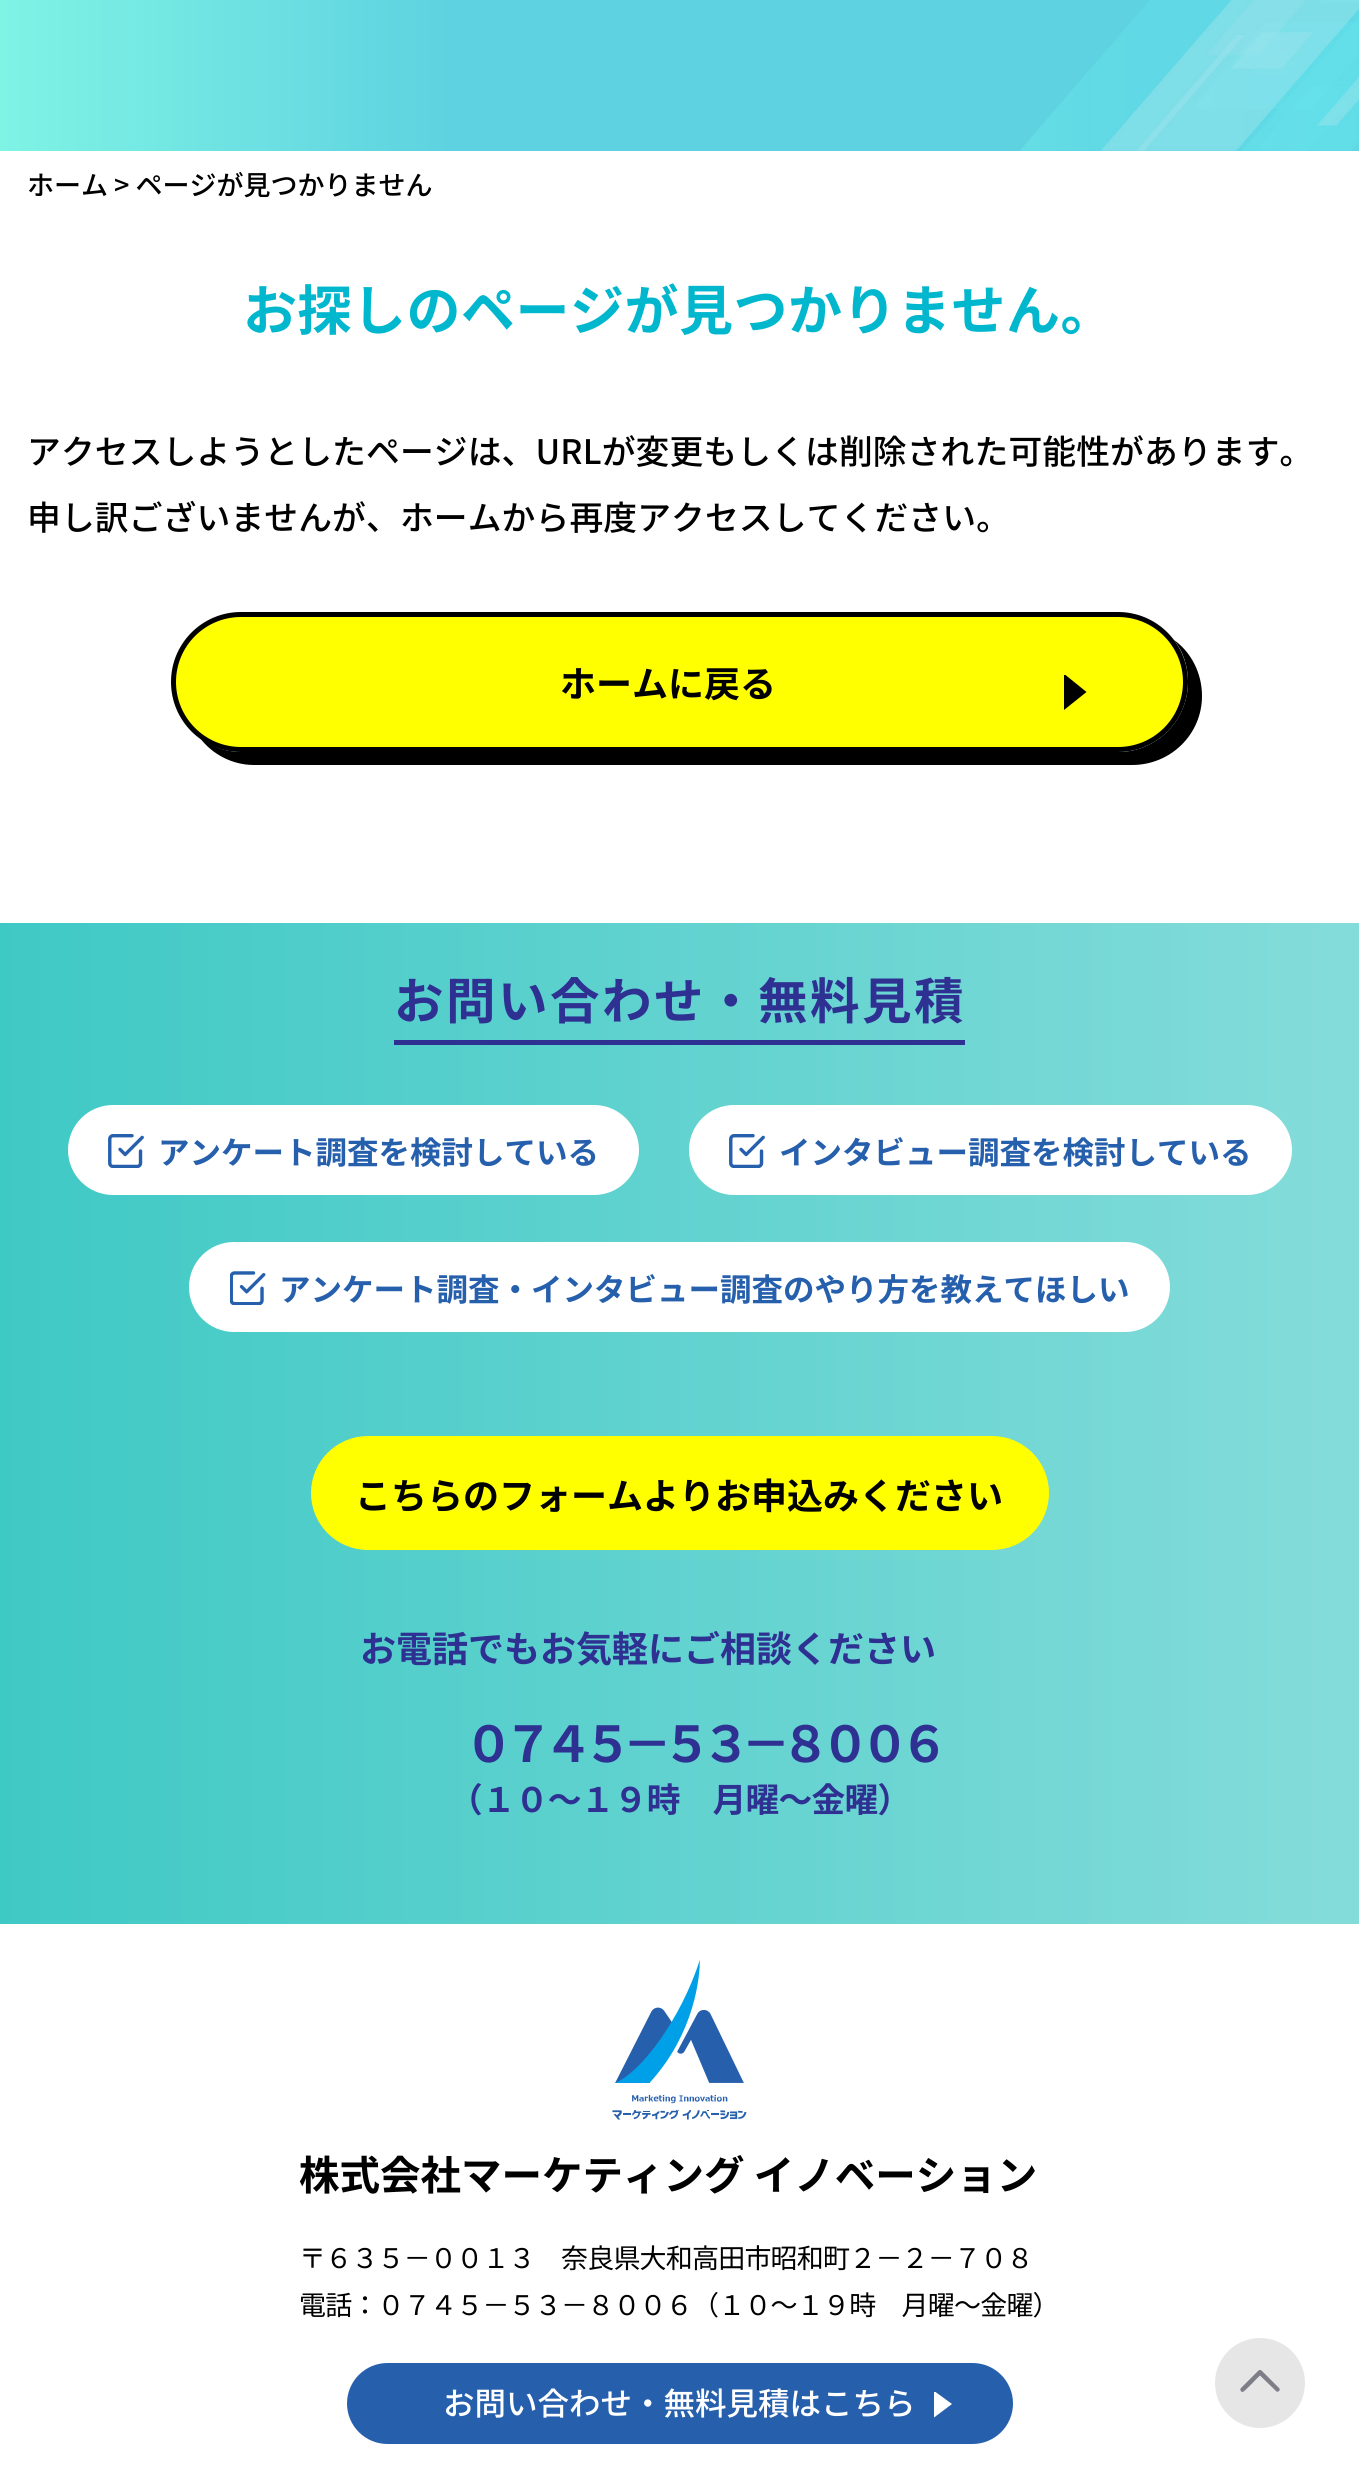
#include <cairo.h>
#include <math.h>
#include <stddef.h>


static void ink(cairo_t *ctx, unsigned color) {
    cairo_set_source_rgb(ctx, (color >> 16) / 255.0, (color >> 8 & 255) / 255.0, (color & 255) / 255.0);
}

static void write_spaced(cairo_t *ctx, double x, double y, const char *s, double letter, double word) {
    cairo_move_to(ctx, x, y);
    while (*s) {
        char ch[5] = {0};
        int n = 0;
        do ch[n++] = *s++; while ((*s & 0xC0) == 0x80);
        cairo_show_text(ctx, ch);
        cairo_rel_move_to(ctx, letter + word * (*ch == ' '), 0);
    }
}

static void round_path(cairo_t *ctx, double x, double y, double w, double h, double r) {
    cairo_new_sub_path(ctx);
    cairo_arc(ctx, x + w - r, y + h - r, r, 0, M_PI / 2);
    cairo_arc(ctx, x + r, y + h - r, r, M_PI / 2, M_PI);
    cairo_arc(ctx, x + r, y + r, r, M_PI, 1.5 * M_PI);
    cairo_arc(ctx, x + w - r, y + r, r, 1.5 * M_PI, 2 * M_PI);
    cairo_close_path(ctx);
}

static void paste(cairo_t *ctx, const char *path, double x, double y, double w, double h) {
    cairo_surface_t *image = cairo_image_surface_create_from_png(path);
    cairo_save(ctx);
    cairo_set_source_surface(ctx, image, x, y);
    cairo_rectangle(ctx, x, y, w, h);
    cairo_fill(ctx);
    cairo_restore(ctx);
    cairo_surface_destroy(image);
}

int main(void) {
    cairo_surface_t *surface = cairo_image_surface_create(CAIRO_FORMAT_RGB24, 1359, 2480);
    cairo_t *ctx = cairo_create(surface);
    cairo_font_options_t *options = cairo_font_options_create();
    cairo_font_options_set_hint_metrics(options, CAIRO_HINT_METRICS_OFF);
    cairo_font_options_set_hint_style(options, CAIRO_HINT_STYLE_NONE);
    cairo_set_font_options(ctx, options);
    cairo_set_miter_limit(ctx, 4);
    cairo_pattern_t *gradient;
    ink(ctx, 0xFFFFFF);
    cairo_paint(ctx);
    gradient = cairo_pattern_create_linear(0, -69, 1359, -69);
    cairo_pattern_add_color_stop_rgba(gradient, 0, 0.498, 0.953, 0.894, 1);
    cairo_pattern_add_color_stop_rgba(gradient, 0.33, 0.369, 0.824, 0.878, 1);
    cairo_pattern_add_color_stop_rgba(gradient, 1, 0.369, 0.824, 0.878, 1);
    cairo_set_source(ctx, gradient);
    cairo_pattern_destroy(gradient);
    cairo_rectangle(ctx, 0, 0, 1359, 151);
    cairo_fill(ctx);
    paste(ctx, "media/1.png", 1020, 0, 339, 151);
    cairo_select_font_face(ctx, "Noto Sans JP Medium", CAIRO_FONT_SLANT_NORMAL, CAIRO_FONT_WEIGHT_NORMAL);
    cairo_set_font_size(ctx, 27);
    ink(ctx, 0x000000);
    cairo_move_to(ctx, 27, 195);
    cairo_show_text(ctx, "ホーム > ページが見つかりません");
    cairo_select_font_face(ctx, "Noto Sans JP", CAIRO_FONT_SLANT_NORMAL, CAIRO_FONT_WEIGHT_BOLD);
    cairo_set_font_size(ctx, 54);
    ink(ctx, 0x00B7CE);
    write_spaced(ctx, 243, 330, "お探しのページが見つかりません。", 0.5, 0);
    cairo_select_font_face(ctx, "Noto Sans JP Medium", CAIRO_FONT_SLANT_NORMAL, CAIRO_FONT_WEIGHT_NORMAL);
    cairo_set_font_size(ctx, 33.75);
    ink(ctx, 0x000000);
    write_spaced(ctx, 27, 464, "アクセスしようとしたページは、URLが変更もしくは削除された可能性があります。", 0.15, 0);
    write_spaced(ctx, 27, 530, "申し訳ございませんが、ホームから再度アクセスしてください。", 0.15, 0);
    cairo_new_path(ctx);
    cairo_move_to(ctx, 200, 738);
    cairo_curve_to(ctx, 212, 754, 232, 765, 254, 765);
    cairo_line_to(ctx, 1132, 765);
    cairo_curve_to(ctx, 1171, 765, 1202, 734, 1202, 696);
    cairo_curve_to(ctx, 1202, 673, 1191, 652, 1174, 640);
    cairo_curve_to(ctx, 1183, 651, 1188, 666, 1188, 682);
    cairo_curve_to(ctx, 1188, 720, 1157, 752, 1118, 752);
    cairo_line_to(ctx, 241, 752);
    cairo_curve_to(ctx, 225, 752, 211, 746, 200, 738);
    cairo_close_path(ctx);
    cairo_fill(ctx);
    ink(ctx, 0xFFFF00);
    round_path(ctx, 173.5, 614.5, 1012, 135, 67.5);
    cairo_fill_preserve(ctx);
    ink(ctx, 0x000000);
    cairo_set_line_width(ctx, 5);
    cairo_stroke(ctx);
    cairo_select_font_face(ctx, "Noto Sans JP", CAIRO_FONT_SLANT_NORMAL, CAIRO_FONT_WEIGHT_BOLD);
    cairo_set_font_size(ctx, 36);
    cairo_move_to(ctx, 560, 697);
    cairo_show_text(ctx, "ホームに戻る");
    cairo_new_path(ctx);
    cairo_move_to(ctx, 1086.5, 692);
    cairo_line_to(ctx, 1064, 710);
    cairo_line_to(ctx, 1064, 675);
    cairo_line_to(ctx, 1065.5, 675);
    cairo_close_path(ctx);
    cairo_fill(ctx);
    gradient = cairo_pattern_create_linear(0, 1423, 1359, 1423);
    cairo_pattern_add_color_stop_rgba(gradient, 0, 0.247, 0.788, 0.773, 1);
    cairo_pattern_add_color_stop_rgba(gradient, 1, 0.518, 0.863, 0.855, 1);
    cairo_set_source(ctx, gradient);
    cairo_pattern_destroy(gradient);
    cairo_rectangle(ctx, 0, 923, 1359, 1001);
    cairo_fill(ctx);
    ink(ctx, 0x2E3192);
    cairo_rectangle(ctx, 394, 1040, 571, 5);
    cairo_fill(ctx);
    cairo_set_font_size(ctx, 49.5);
    write_spaced(ctx, 394, 1019, "お問い合わせ・無料見積", 2.5, 0);
    ink(ctx, 0xFFFFFF);
    round_path(ctx, 68, 1105, 571, 90, 45);
    cairo_fill(ctx);
    paste(ctx, "media/2.png", 108, 1134, 36, 34);
    cairo_set_font_size(ctx, 31.5);
    ink(ctx, 0x2660AD);
    cairo_move_to(ctx, 158, 1164);
    cairo_show_text(ctx, "アンケート調査を検討している");
    ink(ctx, 0xFFFFFF);
    round_path(ctx, 689, 1105, 603, 90, 45);
    cairo_fill(ctx);
    paste(ctx, "media/2.png", 729, 1134, 36, 34);
    ink(ctx, 0x2660AD);
    cairo_move_to(ctx, 779, 1164);
    cairo_show_text(ctx, "インタビュー調査を検討している");
    ink(ctx, 0xFFFFFF);
    round_path(ctx, 189, 1242, 981, 90, 45);
    cairo_fill(ctx);
    paste(ctx, "media/3.png", 230, 1271, 36, 34);
    ink(ctx, 0x2660AD);
    cairo_move_to(ctx, 279, 1301);
    cairo_show_text(ctx, "アンケート調査・インタビュー調査のやり方を教えてほしい");
    ink(ctx, 0xFFFF00);
    round_path(ctx, 311, 1436, 738, 114, 57);
    cairo_fill(ctx);
    cairo_set_font_size(ctx, 36);
    ink(ctx, 0x000000);
    cairo_move_to(ctx, 355, 1509);
    cairo_show_text(ctx, "こちらのフォームよりお申込みください");
    ink(ctx, 0x2E3192);
    cairo_move_to(ctx, 360, 1662);
    cairo_show_text(ctx, "お電話でもお気軽にご相談ください");
    cairo_set_font_size(ctx, 49.5);
    write_spaced(ctx, 464, 1762, "０７４５－５３－８００６", -9.9, 0);
    cairo_set_font_size(ctx, 33.75);
    write_spaced(ctx, 449, 1812, "（１０〜１９時　月曜～金曜）", -0.8, 0);
    paste(ctx, "media/4.png", 612, 1960, 135, 160);
    cairo_set_font_size(ctx, 40.5);
    ink(ctx, 0x000000);
    cairo_move_to(ctx, 299, 2190);
    cairo_show_text(ctx, "株式会社マーケティング イノベーション");
    cairo_select_font_face(ctx, "Noto Sans JP", CAIRO_FONT_SLANT_NORMAL, CAIRO_FONT_WEIGHT_NORMAL);
    cairo_set_font_size(ctx, 27);
    write_spaced(ctx, 299, 2268, "〒６３５－００１３　奈良県大和高田市昭和町２－２－７０８", -0.8, 0);
    write_spaced(ctx, 299, 2315, "電話：０７４５－５３－８００６（１０〜１９時　月曜～金曜）", -0.8, 0);
    ink(ctx, 0x2660AD);
    round_path(ctx, 347, 2363, 666, 81, 40.5);
    cairo_fill(ctx);
    cairo_select_font_face(ctx, "Noto Sans JP Medium", CAIRO_FONT_SLANT_NORMAL, CAIRO_FONT_WEIGHT_NORMAL);
    cairo_set_font_size(ctx, 31.5);
    ink(ctx, 0xFFFFFF);
    cairo_move_to(ctx, 443, 2415);
    cairo_show_text(ctx, "お問い合わせ・無料見積はこちら");
    cairo_new_path(ctx);
    cairo_move_to(ctx, 934, 2392);
    cairo_line_to(ctx, 935.5, 2392);
    cairo_line_to(ctx, 952, 2404);
    cairo_line_to(ctx, 934, 2417.5);
    cairo_close_path(ctx);
    cairo_fill(ctx);
    ink(ctx, 0xE6E6E6);
    cairo_arc(ctx, 1260, 2383, 45, 0, 2 * M_PI);
    cairo_fill(ctx);
    ink(ctx, 0x7D7E87);
    cairo_new_path(ctx);
    cairo_move_to(ctx, 1242.5, 2392);
    cairo_curve_to(ctx, 1242, 2392, 1241.5, 2392, 1241, 2391);
    cairo_curve_to(ctx, 1240, 2390, 1240, 2389, 1241, 2388);
    cairo_line_to(ctx, 1258.5, 2370.5);
    cairo_curve_to(ctx, 1259, 2370, 1259.5, 2370, 1260, 2370);
    cairo_curve_to(ctx, 1260.5, 2370, 1261, 2370, 1261.5, 2370.5);
    cairo_line_to(ctx, 1279, 2388);
    cairo_curve_to(ctx, 1280, 2389, 1280, 2390, 1279, 2391);
    cairo_curve_to(ctx, 1278, 2392, 1276.5, 2392, 1276, 2391);
    cairo_line_to(ctx, 1260, 2375.5);
    cairo_curve_to(ctx, 1257.5, 2377.5, 1244.5, 2392, 1242.5, 2392);
    cairo_close_path(ctx);
    cairo_fill(ctx);
    cairo_surface_write_to_png(surface, "image.png");
    cairo_font_options_destroy(options);
    cairo_destroy(ctx);
    cairo_surface_destroy(surface);
    return 0;
}
